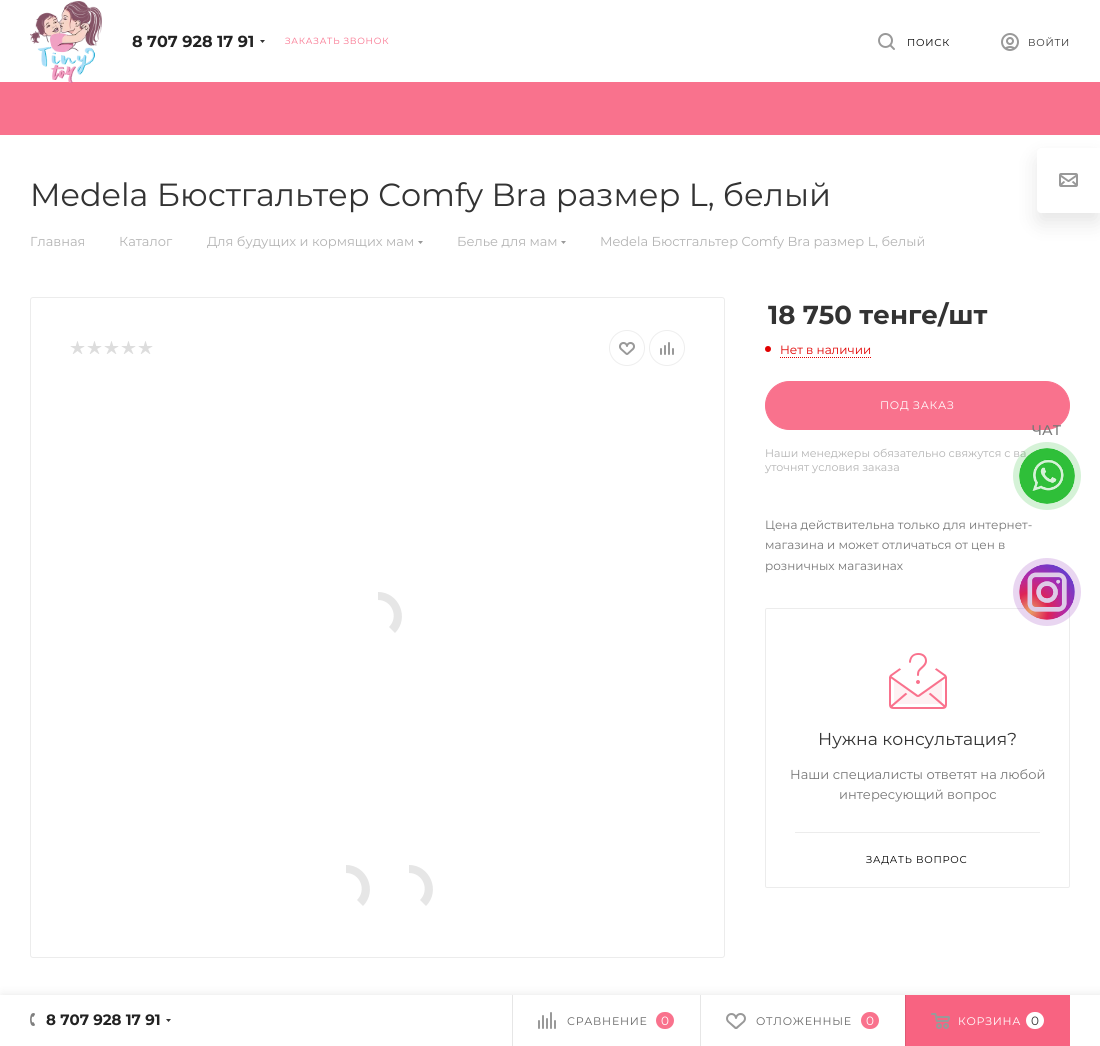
#include <cairo.h>
#include <math.h>
#include <stddef.h>

typedef struct { double x, y; const char *s; } line_t;

static void ink(cairo_t *ctx, unsigned color) {
    cairo_set_source_rgb(ctx, (color >> 16) / 255.0, (color >> 8 & 255) / 255.0, (color & 255) / 255.0);
}

static void write_spaced(cairo_t *ctx, double x, double y, const char *s, double letter, double word) {
    cairo_move_to(ctx, x, y);
    while (*s) {
        char ch[5] = {0};
        int n = 0;
        do ch[n++] = *s++; while ((*s & 0xC0) == 0x80);
        cairo_show_text(ctx, ch);
        cairo_rel_move_to(ctx, letter + word * (*ch == ' '), 0);
    }
}

static void round_path(cairo_t *ctx, double x, double y, double w, double h, double r) {
    cairo_new_sub_path(ctx);
    cairo_arc(ctx, x + w - r, y + h - r, r, 0, M_PI / 2);
    cairo_arc(ctx, x + r, y + h - r, r, M_PI / 2, M_PI);
    cairo_arc(ctx, x + r, y + r, r, M_PI, 1.5 * M_PI);
    cairo_arc(ctx, x + w - r, y + r, r, 1.5 * M_PI, 2 * M_PI);
    cairo_close_path(ctx);
}

static void blur_box(cairo_t *ctx, double x, double y, double w, double h, double r, double blur, double alpha) {
    cairo_push_group_with_content(ctx, CAIRO_CONTENT_ALPHA);
    cairo_set_operator(ctx, CAIRO_OPERATOR_SOURCE);
    for (int i = 15; i >= -15 && fmin(w, h) + blur * i / 3 > 0; i -= 2) {
        double e = blur * i / 6;
        cairo_set_source_rgba(ctx, 0, 0, 0, alpha * erfc((i - 1) / 8.5) / 2);
        round_path(ctx, x - e, y - e, w + 2 * e, h + 2 * e, fmax(0, fmin(r + e + blur * .6, fmin(w, h) / 2 + e)));
        cairo_fill(ctx);
    }
    cairo_pattern_t *soft = cairo_pop_group(ctx);
    cairo_mask(ctx, soft);
    cairo_pattern_destroy(soft);
}

static void paste(cairo_t *ctx, const char *path, double x, double y, double w, double h) {
    cairo_surface_t *image = cairo_image_surface_create_from_png(path);
    cairo_save(ctx);
    cairo_set_source_surface(ctx, image, x, y);
    cairo_rectangle(ctx, x, y, w, h);
    cairo_fill(ctx);
    cairo_restore(ctx);
    cairo_surface_destroy(image);
}

int main(void) {
    cairo_surface_t *surface = cairo_image_surface_create(CAIRO_FORMAT_RGB24, 1100, 1046);
    cairo_t *ctx = cairo_create(surface);
    cairo_font_options_t *options = cairo_font_options_create();
    cairo_font_options_set_hint_metrics(options, CAIRO_HINT_METRICS_OFF);
    cairo_font_options_set_hint_style(options, CAIRO_HINT_STYLE_NONE);
    cairo_set_font_options(ctx, options);
    cairo_set_miter_limit(ctx, 4);
    ink(ctx, 0xFFFFFF);
    cairo_paint(ctx);
    ink(ctx, 0xF9728D);
    cairo_rectangle(ctx, 0, 82, 1100, 53);
    cairo_fill(ctx);
    paste(ctx, "media/1.png", 30, 1, 72, 82);
    cairo_select_font_face(ctx, "Montserrat", CAIRO_FONT_SLANT_NORMAL, CAIRO_FONT_WEIGHT_BOLD);
    cairo_set_font_size(ctx, 16);
    ink(ctx, 0x222222);
    cairo_move_to(ctx, 132, 47);
    cairo_show_text(ctx, "8 707 928 17 91");
    ink(ctx, 0x333333);
    cairo_set_fill_rule(ctx, CAIRO_FILL_RULE_EVEN_ODD);
    cairo_new_path(ctx);
    cairo_move_to(ctx, 260, 40);
    cairo_line_to(ctx, 265, 40);
    cairo_line_to(ctx, 262.5, 43);
    cairo_close_path(ctx);
    cairo_fill(ctx);
    cairo_select_font_face(ctx, "Montserrat", CAIRO_FONT_SLANT_NORMAL, CAIRO_FONT_WEIGHT_NORMAL);
    cairo_set_font_size(ctx, 9);
    ink(ctx, 0xF9728D);
    write_spaced(ctx, 285, 44, "ЗАКАЗАТЬ ЗВОНОК", 0.75, 0);
    paste(ctx, "media/2.png", 878, 33, 17, 17);
    cairo_set_font_size(ctx, 10);
    ink(ctx, 0x000000);
    write_spaced(ctx, 907, 46, "ПОИСК", 0.75, 0);
    paste(ctx, "media/3.png", 1001, 33, 18, 18);
    ink(ctx, 0x333333);
    write_spaced(ctx, 1028, 46, "ВОЙТИ", 0.75, 0);
    cairo_set_font_size(ctx, 32);
    cairo_move_to(ctx, 30, 206);
    cairo_show_text(ctx, "Medela Бюстгальтер Comfy Bra размер L, белый");
    cairo_set_font_size(ctx, 13);
    ink(ctx, 0xB3B3B3);
    {
        static const line_t items[] = {
            {30, 246, "Главная"},
            {119, 246, "Каталог"},
            {207, 246, "Для будущих и кормящих мам"},
        };
        for (size_t i = 0; i < sizeof items / sizeof *items; i++) {
            cairo_move_to(ctx, items[i].x, items[i].y);
            cairo_show_text(ctx, items[i].s);
        }
    }
    ink(ctx, 0x999999);
    cairo_new_path(ctx);
    cairo_move_to(ctx, 418, 241);
    cairo_line_to(ctx, 423, 241);
    cairo_line_to(ctx, 420.5, 244);
    cairo_close_path(ctx);
    cairo_fill(ctx);
    ink(ctx, 0xB3B3B3);
    cairo_move_to(ctx, 457, 246);
    cairo_show_text(ctx, "Белье для мам");
    ink(ctx, 0x999999);
    cairo_new_path(ctx);
    cairo_move_to(ctx, 561, 241);
    cairo_line_to(ctx, 566, 241);
    cairo_line_to(ctx, 563.5, 244);
    cairo_close_path(ctx);
    cairo_fill(ctx);
    ink(ctx, 0xB3B3B3);
    cairo_move_to(ctx, 600, 246);
    cairo_show_text(ctx, "Medela Бюстгальтер Comfy Bra размер L, белый");
    round_path(ctx, 30.5, 297.5, 694, 660, 2.5);
    ink(ctx, 0xECECEC);
    cairo_set_line_width(ctx, 1);
    cairo_stroke(ctx);
    paste(ctx, "media/4.png", 70, 341, 15, 13);
    paste(ctx, "media/4.png", 87, 341, 15, 13);
    paste(ctx, "media/4.png", 104, 341, 15, 13);
    paste(ctx, "media/4.png", 121, 341, 15, 13);
    paste(ctx, "media/4.png", 138, 341, 15, 13);
    cairo_arc(ctx, 627, 348, 17.5, 0, 2 * M_PI);
    ink(ctx, 0xEEEEEE);
    cairo_stroke(ctx);
    paste(ctx, "media/5.png", 619, 342, 16, 13);
    cairo_arc(ctx, 667, 348, 17.5, 0, 2 * M_PI);
    cairo_stroke(ctx);
    paste(ctx, "media/6.png", 660, 342, 14, 13);
    ink(ctx, 0xE6E6E6);
    cairo_set_fill_rule(ctx, CAIRO_FILL_RULE_WINDING);
    cairo_new_path(ctx);
    cairo_move_to(ctx, 378, 592);
    cairo_curve_to(ctx, 399, 592, 410, 618, 395, 633);
    cairo_line_to(ctx, 389, 627);
    cairo_curve_to(ctx, 399, 617, 392, 600, 378, 600);
    cairo_close_path(ctx);
    cairo_fill(ctx);
    cairo_new_path(ctx);
    cairo_move_to(ctx, 346, 865);
    cairo_curve_to(ctx, 367, 865, 378, 891, 363, 906);
    cairo_line_to(ctx, 357, 900);
    cairo_curve_to(ctx, 367, 890, 360, 873, 346, 873);
    cairo_close_path(ctx);
    cairo_fill(ctx);
    cairo_new_path(ctx);
    cairo_move_to(ctx, 409, 865);
    cairo_curve_to(ctx, 430, 865, 441, 891, 426, 906);
    cairo_line_to(ctx, 420, 900);
    cairo_curve_to(ctx, 430, 890, 423, 873, 409, 873);
    cairo_close_path(ctx);
    cairo_fill(ctx);
    cairo_select_font_face(ctx, "Montserrat", CAIRO_FONT_SLANT_NORMAL, CAIRO_FONT_WEIGHT_BOLD);
    cairo_set_font_size(ctx, 26);
    ink(ctx, 0x333333);
    cairo_move_to(ctx, 768, 324);
    cairo_show_text(ctx, "18 750 тенге/шт");
    ink(ctx, 0xE10000);
    cairo_new_path(ctx);
    cairo_arc(ctx, 768, 349, 3, 0, 2 * M_PI);
    cairo_fill(ctx);
    cairo_select_font_face(ctx, "Montserrat", CAIRO_FONT_SLANT_NORMAL, CAIRO_FONT_WEIGHT_NORMAL);
    cairo_set_font_size(ctx, 12);
    cairo_move_to(ctx, 780, 354);
    cairo_show_text(ctx, "Нет в наличии");
    cairo_new_path(ctx);
    cairo_move_to(ctx, 780, 357.5);
    cairo_line_to(ctx, 871, 357.5);
    cairo_set_dash(ctx, (double[]){1, 1}, 2, 0);
    cairo_stroke(ctx);
    ink(ctx, 0xF9728D);
    round_path(ctx, 765.5, 381.5, 304, 48, 24);
    cairo_fill_preserve(ctx);
    cairo_set_dash(ctx, NULL, 0, 0);
    cairo_stroke(ctx);
    cairo_set_font_size(ctx, 11);
    ink(ctx, 0xFFFFFF);
    write_spaced(ctx, 880, 409, "ПОД ЗАКАЗ", 0.75, 0);
    ink(ctx, 0xB3B3B3);
    cairo_move_to(ctx, 765, 457);
    cairo_show_text(ctx, "Наши менеджеры обязательно свяжутся с ва");
    cairo_move_to(ctx, 765, 471);
    cairo_show_text(ctx, "уточнят условия заказа");
    cairo_set_font_size(ctx, 12);
    ink(ctx, 0x777777);
    {
        static const line_t items[] = {
            {765, 529, "Цена действительна только для интернет-"},
            {765, 549, "магазина и может отличаться от цен в"},
            {765, 570, "розничных магазинах"},
        };
        for (size_t i = 0; i < sizeof items / sizeof *items; i++) {
            cairo_move_to(ctx, items[i].x, items[i].y);
            cairo_show_text(ctx, items[i].s);
        }
    }
    round_path(ctx, 765.5, 608.5, 304, 279, 1.5);
    ink(ctx, 0xECECEC);
    cairo_stroke(ctx);
    paste(ctx, "media/7.png", 889, 653, 58, 56);
    cairo_set_font_size(ctx, 17.25);
    ink(ctx, 0x333333);
    cairo_move_to(ctx, 818, 745);
    cairo_show_text(ctx, "Нужна консультация?");
    cairo_set_font_size(ctx, 13);
    ink(ctx, 0x777777);
    cairo_move_to(ctx, 790, 779);
    cairo_show_text(ctx, "Наши специалисты ответят на любой");
    cairo_move_to(ctx, 839, 799);
    cairo_show_text(ctx, "интересующий вопрос");
    ink(ctx, 0xECECEC);
    cairo_rectangle(ctx, 795, 832, 245, 1);
    cairo_fill(ctx);
    cairo_set_font_size(ctx, 10);
    ink(ctx, 0x000000);
    write_spaced(ctx, 866, 863, "ЗАДАТЬ ВОПРОС", 0.75, 0);
    ink(ctx, 0x000000);
    blur_box(ctx, 1037, 158, 63, 65, 4, 10, 0.1);
    ink(ctx, 0xFFFFFF);
    cairo_new_path(ctx);
    cairo_move_to(ctx, 1041, 148);
    cairo_line_to(ctx, 1100, 148);
    cairo_line_to(ctx, 1100, 213);
    cairo_line_to(ctx, 1041, 213);
    cairo_curve_to(ctx, 1039, 213, 1037, 211, 1037, 209);
    cairo_line_to(ctx, 1037, 152);
    cairo_curve_to(ctx, 1037, 150, 1039, 148, 1041, 148);
    cairo_close_path(ctx);
    cairo_fill(ctx);
    paste(ctx, "media/8.png", 1059, 173, 19, 14);
    cairo_select_font_face(ctx, "Montserrat Medium", CAIRO_FONT_SLANT_NORMAL, CAIRO_FONT_WEIGHT_NORMAL);
    cairo_set_font_size(ctx, 14);
    ink(ctx, 0x777777);
    cairo_move_to(ctx, 1032, 435);
    cairo_show_text(ctx, "ЧАТ");
    paste(ctx, "media/9.png", 1019, 448, 56, 56);
    cairo_set_source_rgba(ctx, 0.188, 0.749, 0.224, 0.2);
    cairo_arc(ctx, 1047, 476, 34, 0, 2 * M_PI);
    cairo_fill(ctx);
    paste(ctx, "media/10.png", 1019, 564, 56, 56);
    cairo_set_source_rgba(ctx, 0.573, 0.196, 0.725, 0.2);
    cairo_arc(ctx, 1047, 592, 34, 0, 2 * M_PI);
    cairo_fill(ctx);
    ink(ctx, 0x000000);
    blur_box(ctx, 2, 995, 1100, 51, 0, 5, 0.1);
    ink(ctx, 0xFFFFFF);
    cairo_rectangle(ctx, 0, 995, 1100, 51);
    cairo_fill(ctx);
    paste(ctx, "media/11.png", 30, 1013, 5, 13);
    cairo_select_font_face(ctx, "Montserrat", CAIRO_FONT_SLANT_NORMAL, CAIRO_FONT_WEIGHT_BOLD);
    cairo_set_font_size(ctx, 15);
    ink(ctx, 0x222222);
    cairo_move_to(ctx, 46, 1025);
    cairo_show_text(ctx, "8 707 928 17 91");
    ink(ctx, 0x333333);
    cairo_set_fill_rule(ctx, CAIRO_FILL_RULE_EVEN_ODD);
    cairo_new_path(ctx);
    cairo_move_to(ctx, 166, 1019);
    cairo_line_to(ctx, 171, 1019);
    cairo_line_to(ctx, 168.5, 1022);
    cairo_close_path(ctx);
    cairo_fill(ctx);
    ink(ctx, 0xE6E6E6);
    cairo_rectangle(ctx, 512, 995, 1, 51);
    cairo_fill(ctx);
    paste(ctx, "media/12.png", 538, 1012, 18, 17);
    cairo_select_font_face(ctx, "Montserrat", CAIRO_FONT_SLANT_NORMAL, CAIRO_FONT_WEIGHT_NORMAL);
    cairo_set_font_size(ctx, 11);
    ink(ctx, 0x666666);
    write_spaced(ctx, 567, 1025, "СРАВНЕНИЕ", 0.75, 0);
    ink(ctx, 0xF9728D);
    round_path(ctx, 656, 1012, 18, 17, 8.5);
    cairo_fill(ctx);
    cairo_set_font_size(ctx, 12);
    ink(ctx, 0xFFFFFF);
    cairo_move_to(ctx, 661, 1025);
    cairo_show_text(ctx, "0");
    ink(ctx, 0xE6E6E6);
    cairo_rectangle(ctx, 700, 995, 1, 51);
    cairo_fill(ctx);
    paste(ctx, "media/13.png", 726, 1013, 20, 16);
    cairo_set_font_size(ctx, 11);
    ink(ctx, 0x666666);
    write_spaced(ctx, 756, 1025, "ОТЛОЖЕННЫЕ", 0.75, 0);
    ink(ctx, 0xF9728D);
    round_path(ctx, 861, 1012, 18, 17, 8.5);
    cairo_fill(ctx);
    cairo_set_font_size(ctx, 12);
    ink(ctx, 0xFFFFFF);
    cairo_move_to(ctx, 866, 1025);
    cairo_show_text(ctx, "0");
    ink(ctx, 0xF86381);
    cairo_rectangle(ctx, 906, 995, 164, 51);
    cairo_fill(ctx);
    ink(ctx, 0xDF5974);
    cairo_rectangle(ctx, 905, 995, 1, 51);
    cairo_fill(ctx);
    paste(ctx, "media/14.png", 931, 1013, 19, 16);
    cairo_set_font_size(ctx, 11);
    ink(ctx, 0xFFFFFF);
    write_spaced(ctx, 958, 1025, "КОРЗИНА", 0.75, 0);
    round_path(ctx, 1026, 1012, 18, 17, 8.5);
    cairo_fill(ctx);
    cairo_set_font_size(ctx, 12);
    ink(ctx, 0x333333);
    cairo_move_to(ctx, 1031, 1025);
    cairo_show_text(ctx, "0");
    cairo_surface_write_to_png(surface, "image.png");
    cairo_font_options_destroy(options);
    cairo_destroy(ctx);
    cairo_surface_destroy(surface);
    return 0;
}
